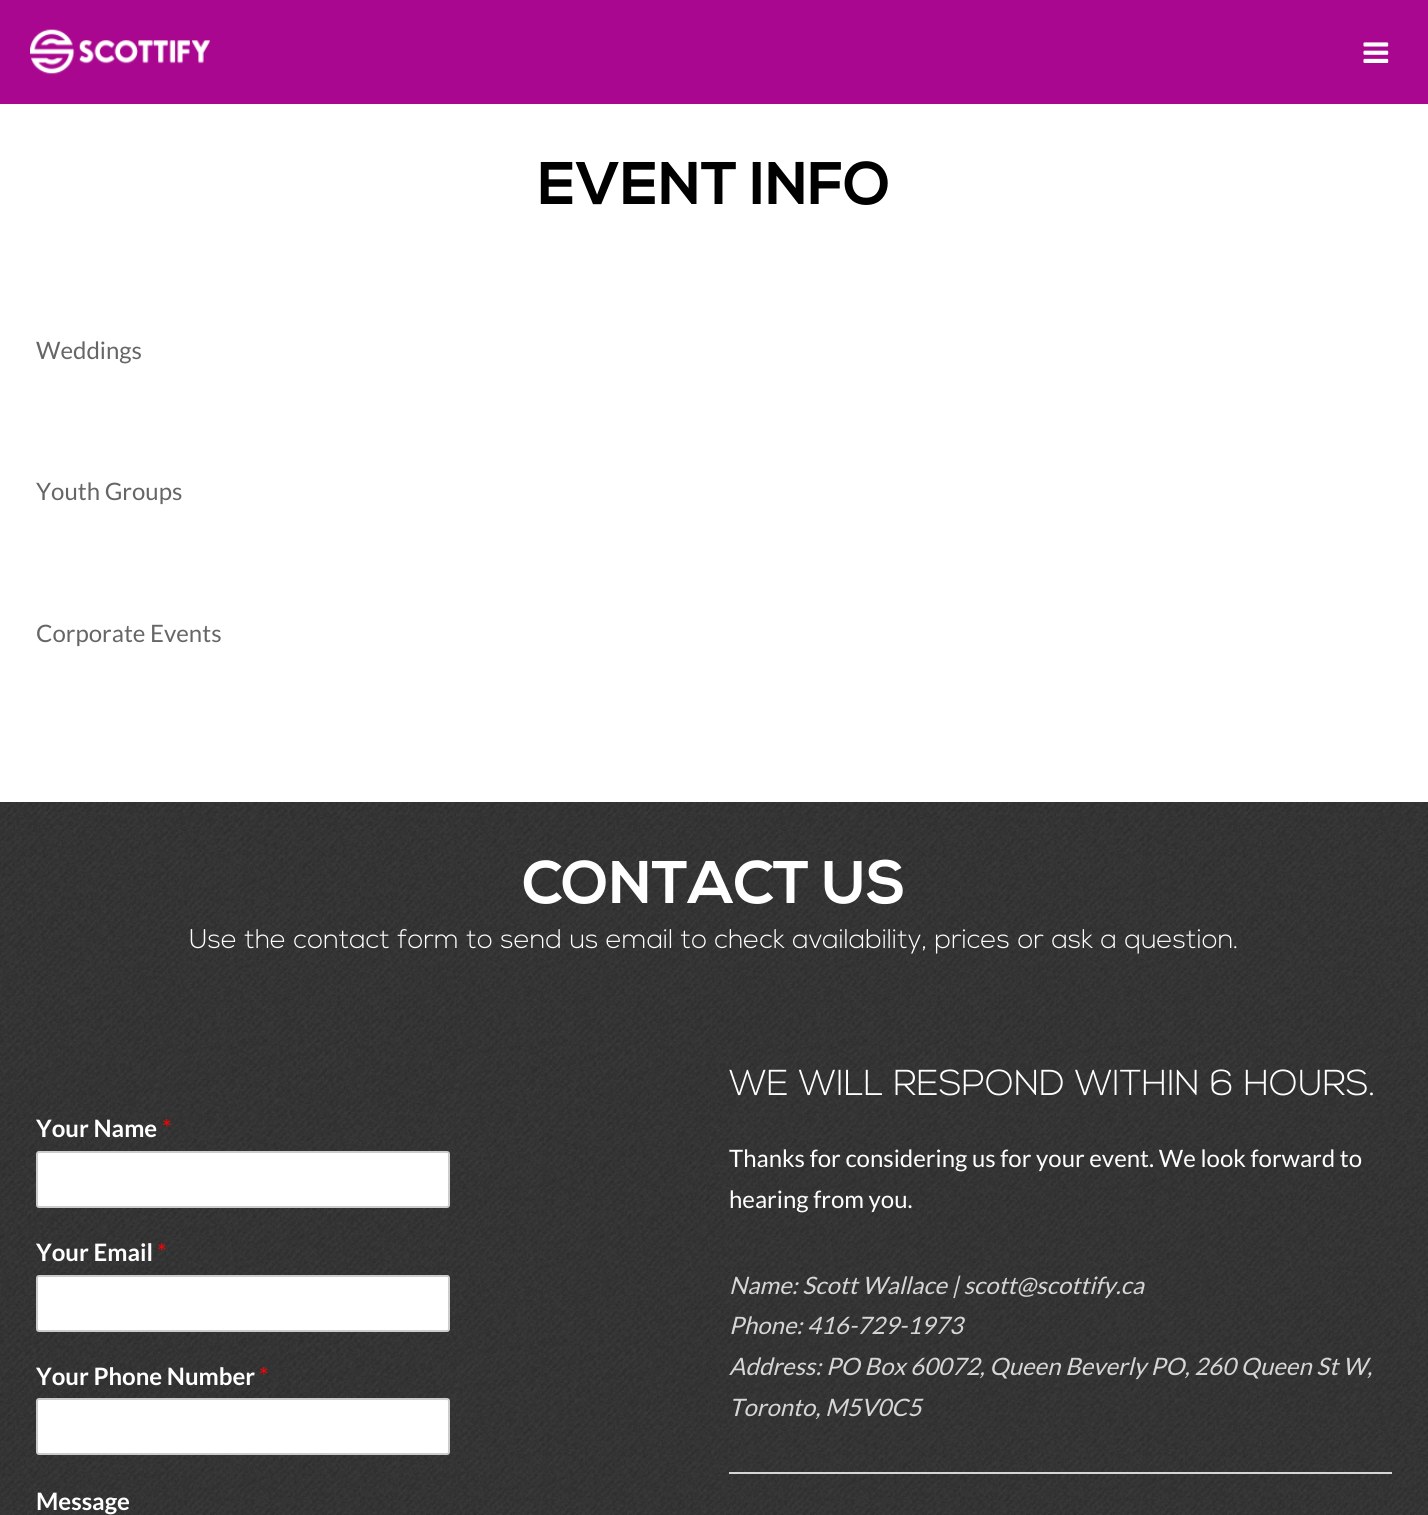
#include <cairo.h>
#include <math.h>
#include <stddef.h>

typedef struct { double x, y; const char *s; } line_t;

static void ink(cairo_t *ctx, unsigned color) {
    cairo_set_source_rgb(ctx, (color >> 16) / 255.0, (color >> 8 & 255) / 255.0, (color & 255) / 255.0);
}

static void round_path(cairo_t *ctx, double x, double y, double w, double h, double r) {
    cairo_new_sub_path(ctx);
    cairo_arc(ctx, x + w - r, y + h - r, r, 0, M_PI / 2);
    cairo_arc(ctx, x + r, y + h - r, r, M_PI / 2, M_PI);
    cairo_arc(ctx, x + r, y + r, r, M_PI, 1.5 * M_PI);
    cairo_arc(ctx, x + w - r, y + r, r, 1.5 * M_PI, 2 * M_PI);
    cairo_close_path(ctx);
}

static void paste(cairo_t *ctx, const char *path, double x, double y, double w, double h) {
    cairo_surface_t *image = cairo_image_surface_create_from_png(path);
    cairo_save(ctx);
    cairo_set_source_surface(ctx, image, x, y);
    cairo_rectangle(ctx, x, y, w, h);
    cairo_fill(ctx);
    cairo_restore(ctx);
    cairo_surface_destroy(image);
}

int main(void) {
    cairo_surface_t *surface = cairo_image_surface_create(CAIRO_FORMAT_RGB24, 1428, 1515);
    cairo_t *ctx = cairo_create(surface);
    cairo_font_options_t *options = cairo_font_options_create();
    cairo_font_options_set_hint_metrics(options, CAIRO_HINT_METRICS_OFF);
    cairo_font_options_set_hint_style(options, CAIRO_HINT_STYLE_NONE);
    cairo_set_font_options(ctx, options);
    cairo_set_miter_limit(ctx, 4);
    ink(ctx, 0xFFFFFF);
    cairo_paint(ctx);
    ink(ctx, 0xAA0791);
    cairo_rectangle(ctx, 0, 0, 1428, 104);
    cairo_fill(ctx);
    paste(ctx, "media/1.png", 30, 29, 180, 46);
    paste(ctx, "media/2.png", 1363, 42, 26, 21);
    cairo_select_font_face(ctx, "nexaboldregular", CAIRO_FONT_SLANT_NORMAL, CAIRO_FONT_WEIGHT_BOLD);
    cairo_set_font_size(ctx, 60);
    ink(ctx, 0x000000);
    cairo_move_to(ctx, 538, 204);
    cairo_show_text(ctx, "EVENT INFO");
    cairo_select_font_face(ctx, "Lato", CAIRO_FONT_SLANT_NORMAL, CAIRO_FONT_WEIGHT_NORMAL);
    cairo_set_font_size(ctx, 24);
    ink(ctx, 0x666666);
    {
        static const line_t items[] = {
            {36, 359, "Weddings"},
            {36, 500, "Youth Groups"},
            {36, 642, "Corporate Events"},
        };
        for (size_t i = 0; i < sizeof items / sizeof *items; i++) {
            cairo_move_to(ctx, items[i].x, items[i].y);
            cairo_show_text(ctx, items[i].s);
        }
    }
    paste(ctx, "media/3.png", 0, 802, 1428, 713);
    cairo_select_font_face(ctx, "nexaboldregular", CAIRO_FONT_SLANT_NORMAL, CAIRO_FONT_WEIGHT_BOLD);
    cairo_set_font_size(ctx, 60);
    ink(ctx, 0xFFFFFF);
    cairo_move_to(ctx, 522, 903);
    cairo_show_text(ctx, "CONTACT US");
    cairo_select_font_face(ctx, "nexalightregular", CAIRO_FONT_SLANT_NORMAL, CAIRO_FONT_WEIGHT_NORMAL);
    cairo_set_font_size(ctx, 27);
    cairo_move_to(ctx, 189, 948);
    cairo_show_text(ctx, "Use the contact form to send us email to check availability, prices or ask a question.");
    cairo_select_font_face(ctx, "Lato", CAIRO_FONT_SLANT_NORMAL, CAIRO_FONT_WEIGHT_BOLD);
    cairo_set_font_size(ctx, 24);
    cairo_move_to(ctx, 36, 1137);
    cairo_show_text(ctx, "Your Name");
    cairo_select_font_face(ctx, "Lato", CAIRO_FONT_SLANT_NORMAL, CAIRO_FONT_WEIGHT_NORMAL);
    ink(ctx, 0xFF0000);
    cairo_move_to(ctx, 162, 1137);
    cairo_show_text(ctx, "*");
    ink(ctx, 0xFFFFFF);
    round_path(ctx, 37, 1152, 412, 55, 2);
    cairo_fill_preserve(ctx);
    ink(ctx, 0xCCCCCC);
    cairo_stroke(ctx);
    cairo_select_font_face(ctx, "Lato", CAIRO_FONT_SLANT_NORMAL, CAIRO_FONT_WEIGHT_BOLD);
    ink(ctx, 0xFFFFFF);
    cairo_move_to(ctx, 36, 1261);
    cairo_show_text(ctx, "Your Email");
    cairo_select_font_face(ctx, "Lato", CAIRO_FONT_SLANT_NORMAL, CAIRO_FONT_WEIGHT_NORMAL);
    ink(ctx, 0xFF0000);
    cairo_move_to(ctx, 157, 1261);
    cairo_show_text(ctx, "*");
    ink(ctx, 0xFFFFFF);
    round_path(ctx, 37, 1276, 412, 55, 2);
    cairo_fill_preserve(ctx);
    ink(ctx, 0xCCCCCC);
    cairo_stroke(ctx);
    cairo_select_font_face(ctx, "Lato", CAIRO_FONT_SLANT_NORMAL, CAIRO_FONT_WEIGHT_BOLD);
    ink(ctx, 0xFFFFFF);
    cairo_move_to(ctx, 36, 1385);
    cairo_show_text(ctx, "Your Phone Number");
    cairo_select_font_face(ctx, "Lato", CAIRO_FONT_SLANT_NORMAL, CAIRO_FONT_WEIGHT_NORMAL);
    ink(ctx, 0xFF0000);
    cairo_move_to(ctx, 259, 1385);
    cairo_show_text(ctx, "*");
    ink(ctx, 0xFFFFFF);
    round_path(ctx, 37, 1399, 412, 55, 2);
    cairo_fill_preserve(ctx);
    ink(ctx, 0xCCCCCC);
    cairo_stroke(ctx);
    cairo_select_font_face(ctx, "Lato", CAIRO_FONT_SLANT_NORMAL, CAIRO_FONT_WEIGHT_BOLD);
    ink(ctx, 0xFFFFFF);
    cairo_move_to(ctx, 36, 1510);
    cairo_show_text(ctx, "Message");
    cairo_select_font_face(ctx, "nexalightregular", CAIRO_FONT_SLANT_NORMAL, CAIRO_FONT_WEIGHT_NORMAL);
    cairo_set_font_size(ctx, 36);
    cairo_move_to(ctx, 729, 1095);
    cairo_show_text(ctx, "WE WILL RESPOND WITHIN 6 HOURS.");
    cairo_select_font_face(ctx, "Lato", CAIRO_FONT_SLANT_NORMAL, CAIRO_FONT_WEIGHT_NORMAL);
    cairo_set_font_size(ctx, 24);
    cairo_move_to(ctx, 729, 1167);
    cairo_show_text(ctx, "Thanks for considering us for your event. We look forward to");
    cairo_move_to(ctx, 729, 1208);
    cairo_show_text(ctx, "hearing from you.");
    cairo_set_source_rgba(ctx, 1, 1, 1, 0.8);
    cairo_rectangle(ctx, 729, 1472, 663, 2);
    cairo_fill(ctx);
    cairo_select_font_face(ctx, "Lato", CAIRO_FONT_SLANT_ITALIC, CAIRO_FONT_WEIGHT_NORMAL);
    ink(ctx, 0xD6D6D6);
    {
        static const line_t items[] = {
            {729, 1294, "Name: Scott Wallace | scott@scottify.ca"},
            {729, 1334, "Phone: 416-729-1973"},
            {729, 1375, "Address: PO Box 60072, Queen Beverly PO, 260 Queen St W,"},
            {729, 1416, "Toronto, M5V0C5"},
        };
        for (size_t i = 0; i < sizeof items / sizeof *items; i++) {
            cairo_move_to(ctx, items[i].x, items[i].y);
            cairo_show_text(ctx, items[i].s);
        }
    }
    cairo_surface_write_to_png(surface, "image.png");
    cairo_font_options_destroy(options);
    cairo_destroy(ctx);
    cairo_surface_destroy(surface);
    return 0;
}
